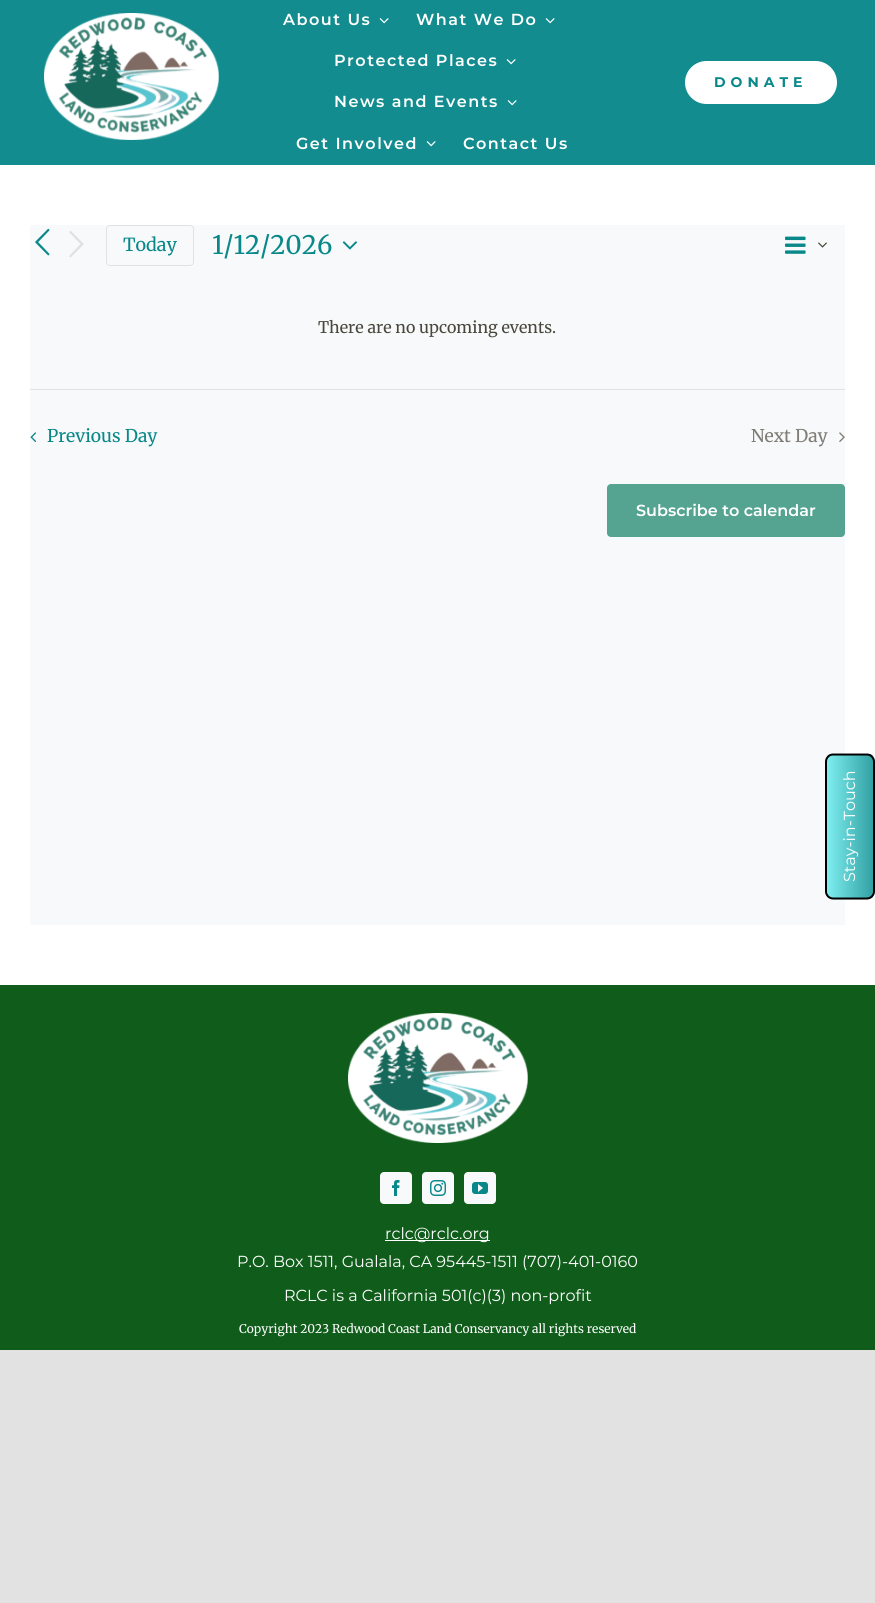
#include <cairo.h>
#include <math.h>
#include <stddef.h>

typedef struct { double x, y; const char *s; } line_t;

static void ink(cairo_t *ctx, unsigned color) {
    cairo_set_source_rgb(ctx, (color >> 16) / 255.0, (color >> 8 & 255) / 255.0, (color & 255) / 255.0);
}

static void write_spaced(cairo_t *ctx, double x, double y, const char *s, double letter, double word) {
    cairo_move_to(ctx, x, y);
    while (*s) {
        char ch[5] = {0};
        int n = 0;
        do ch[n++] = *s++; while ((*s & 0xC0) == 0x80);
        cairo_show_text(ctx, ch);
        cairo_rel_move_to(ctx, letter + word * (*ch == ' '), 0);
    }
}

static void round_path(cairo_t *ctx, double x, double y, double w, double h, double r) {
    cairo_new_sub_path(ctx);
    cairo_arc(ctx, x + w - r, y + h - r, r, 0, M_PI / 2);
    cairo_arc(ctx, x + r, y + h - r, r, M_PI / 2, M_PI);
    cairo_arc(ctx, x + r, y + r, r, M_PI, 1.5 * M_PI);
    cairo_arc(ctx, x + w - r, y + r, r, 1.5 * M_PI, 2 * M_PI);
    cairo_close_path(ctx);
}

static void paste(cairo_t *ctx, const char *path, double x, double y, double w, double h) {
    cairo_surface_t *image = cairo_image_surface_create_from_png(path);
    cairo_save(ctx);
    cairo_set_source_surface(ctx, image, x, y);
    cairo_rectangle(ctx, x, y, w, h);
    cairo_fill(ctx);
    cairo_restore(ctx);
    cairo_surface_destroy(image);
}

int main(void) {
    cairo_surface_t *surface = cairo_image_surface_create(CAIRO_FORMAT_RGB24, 875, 1603);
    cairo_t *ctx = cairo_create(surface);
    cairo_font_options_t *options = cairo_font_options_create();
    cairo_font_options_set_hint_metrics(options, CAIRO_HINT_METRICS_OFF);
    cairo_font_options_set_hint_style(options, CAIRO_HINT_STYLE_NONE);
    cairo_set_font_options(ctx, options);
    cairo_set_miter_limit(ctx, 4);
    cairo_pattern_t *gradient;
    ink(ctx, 0xE2E2E2);
    cairo_paint(ctx);
    ink(ctx, 0xFFFFFF);
    cairo_rectangle(ctx, 0, 165, 875, 820);
    cairo_fill(ctx);
    ink(ctx, 0x128C8E);
    cairo_rectangle(ctx, 0, 0, 875, 165);
    cairo_fill(ctx);
    paste(ctx, "media/1.png", 44, 13, 175, 127);
    cairo_select_font_face(ctx, "Montserrat SemiBold", CAIRO_FONT_SLANT_NORMAL, CAIRO_FONT_WEIGHT_NORMAL);
    cairo_set_font_size(ctx, 16);
    ink(ctx, 0xFFFFFF);
    write_spaced(ctx, 283, 25, "About Us", 1.5, 0);
    paste(ctx, "media/2.png", 379, 18, 10, 6);
    write_spaced(ctx, 416, 25, "What We Do", 1.5, 0);
    paste(ctx, "media/2.png", 545, 18, 10, 6);
    write_spaced(ctx, 334, 66, "Protected Places", 1.5, 0);
    paste(ctx, "media/2.png", 506, 59, 10, 6);
    write_spaced(ctx, 334, 107, "News and Events", 1.5, 0);
    paste(ctx, "media/2.png", 507, 100, 10, 6);
    write_spaced(ctx, 296, 149, "Get Involved", 1.5, 0);
    paste(ctx, "media/2.png", 426, 141, 10, 6);
    write_spaced(ctx, 463, 149, "Contact Us", 1.5, 0);
    round_path(ctx, 685, 61, 152, 43, 21.5);
    cairo_fill(ctx);
    cairo_select_font_face(ctx, "Montserrat", CAIRO_FONT_SLANT_NORMAL, CAIRO_FONT_WEIGHT_BOLD);
    cairo_set_font_size(ctx, 14);
    ink(ctx, 0x09888A);
    write_spaced(ctx, 714, 87, "DONATE", 5, 0);
    ink(ctx, 0xF8F9FA);
    cairo_rectangle(ctx, 30, 225, 815, 700);
    cairo_fill(ctx);
    paste(ctx, "media/3.png", 35, 228, 15, 28);
    paste(ctx, "media/4.png", 69, 231, 15, 27);
    round_path(ctx, 106.5, 225.5, 87, 40, 3.5);
    ink(ctx, 0xE2E2E2);
    cairo_set_line_width(ctx, 1);
    cairo_stroke(ctx);
    cairo_select_font_face(ctx, "Merriweather", CAIRO_FONT_SLANT_NORMAL, CAIRO_FONT_WEIGHT_NORMAL);
    cairo_set_font_size(ctx, 18);
    ink(ctx, 0x09888A);
    cairo_move_to(ctx, 123, 251);
    cairo_show_text(ctx, "Today");
    cairo_set_font_size(ctx, 25.5);
    cairo_move_to(ctx, 212, 254);
    cairo_show_text(ctx, "1/12/2026");
    paste(ctx, "media/5.png", 342, 241, 15, 9);
    paste(ctx, "media/6.png", 785, 236, 21, 18);
    paste(ctx, "media/7.png", 818, 242, 9, 6);
    cairo_set_font_size(ctx, 16);
    ink(ctx, 0x49473C);
    cairo_move_to(ctx, 318, 333);
    cairo_show_text(ctx, "There are no upcoming events.");
    ink(ctx, 0xE2E2E2);
    cairo_rectangle(ctx, 30, 389, 815, 1);
    cairo_fill(ctx);
    paste(ctx, "media/8.png", 30, 432, 7, 10);
    cairo_set_font_size(ctx, 17.5);
    ink(ctx, 0x09888A);
    cairo_move_to(ctx, 47, 442);
    cairo_show_text(ctx, "Previous Day");
    ink(ctx, 0x7E7C75);
    cairo_move_to(ctx, 751, 442);
    cairo_show_text(ctx, "Next Day");
    paste(ctx, "media/9.png", 839, 432, 6, 10);
    ink(ctx, 0x54A491);
    round_path(ctx, 607, 484, 238, 53, 4);
    cairo_fill(ctx);
    cairo_select_font_face(ctx, "Montserrat SemiBold", CAIRO_FONT_SLANT_NORMAL, CAIRO_FONT_WEIGHT_NORMAL);
    cairo_set_font_size(ctx, 16);
    ink(ctx, 0xFFFFFF);
    cairo_move_to(ctx, 636, 516);
    cairo_show_text(ctx, "Subscribe to calendar");
    ink(ctx, 0x105D1B);
    cairo_rectangle(ctx, 0, 985, 875, 365);
    cairo_fill(ctx);
    paste(ctx, "media/10.png", 348, 1013, 180, 130);
    ink(ctx, 0xF8F9FA);
    round_path(ctx, 380, 1172, 32, 32, 4);
    cairo_fill(ctx);
    paste(ctx, "media/11.png", 392, 1180, 8, 16);
    round_path(ctx, 422, 1172, 32, 32, 4);
    cairo_fill(ctx);
    paste(ctx, "media/12.png", 430, 1180, 16, 16);
    round_path(ctx, 464, 1172, 32, 32, 4);
    cairo_fill(ctx);
    paste(ctx, "media/13.png", 472, 1182, 16, 12);
    ink(ctx, 0xFFFFFF);
    cairo_rectangle(ctx, 385, 1240, 105, 1);
    cairo_fill(ctx);
    cairo_select_font_face(ctx, "Montserrat Thin", CAIRO_FONT_SLANT_NORMAL, CAIRO_FONT_WEIGHT_NORMAL);
    {
        static const line_t items[] = {
            {385, 1239, "rclc@rclc.org"},
            {237, 1267, "P.O. Box 1511, Gualala, CA 95445-1511 (707)-401-0160"},
            {284, 1301, "RCLC is a California 501(c)(3) non-profit"},
        };
        for (size_t i = 0; i < sizeof items / sizeof *items; i++) {
            cairo_move_to(ctx, items[i].x, items[i].y);
            cairo_show_text(ctx, items[i].s);
        }
    }
    cairo_select_font_face(ctx, "Merriweather", CAIRO_FONT_SLANT_NORMAL, CAIRO_FONT_WEIGHT_NORMAL);
    cairo_set_font_size(ctx, 12);
    cairo_move_to(ctx, 239, 1333);
    cairo_show_text(ctx, "Copyright 2023 Redwood Coast Land Conservancy all rights reserved");
    gradient = cairo_pattern_create_linear(827, 827, 873, 827);
    cairo_pattern_add_color_stop_rgba(gradient, 0, 0.498, 0.933, 0.941, 1);
    cairo_pattern_add_color_stop_rgba(gradient, 1, 0.196, 0.631, 0.639, 1);
    cairo_set_source(ctx, gradient);
    cairo_pattern_destroy(gradient);
    cairo_new_path(ctx);
    cairo_move_to(ctx, 831, 899);
    cairo_line_to(ctx, 827, 897);
    cairo_line_to(ctx, 827, 756);
    cairo_curve_to(ctx, 828, 755, 829, 754, 831, 754);
    cairo_line_to(ctx, 869, 754);
    cairo_curve_to(ctx, 871, 754, 872, 755, 873, 756);
    cairo_line_to(ctx, 873, 897);
    cairo_line_to(ctx, 869, 899);
    cairo_close_path(ctx);
    cairo_fill(ctx);
    cairo_new_path(ctx);
    cairo_move_to(ctx, 826, 891.5);
    cairo_line_to(ctx, 826, 761.5);
    cairo_curve_to(ctx, 826, 758, 829, 754.5, 833, 754.5);
    cairo_line_to(ctx, 867, 754.5);
    cairo_curve_to(ctx, 871, 754.5, 874, 758, 874, 761.5);
    cairo_line_to(ctx, 874, 891.5);
    cairo_curve_to(ctx, 874, 895, 871, 898.5, 867, 898.5);
    cairo_line_to(ctx, 833, 898.5);
    cairo_curve_to(ctx, 829, 898.5, 826, 895, 826, 891.5);
    cairo_close_path(ctx);
    ink(ctx, 0x000000);
    cairo_set_line_width(ctx, 2);
    cairo_stroke(ctx);
    cairo_select_font_face(ctx, "Montserrat Thin", CAIRO_FONT_SLANT_NORMAL, CAIRO_FONT_WEIGHT_NORMAL);
    cairo_set_font_size(ctx, 16);
    ink(ctx, 0xFFFFFF);
    cairo_save(ctx);
    cairo_translate(ctx, 855, 882);
    cairo_rotate(ctx, -90 * M_PI / 180);
    cairo_move_to(ctx, 0, 0);
    cairo_show_text(ctx, "Stay-in-Touch");
    cairo_restore(ctx);
    cairo_surface_write_to_png(surface, "image.png");
    cairo_font_options_destroy(options);
    cairo_destroy(ctx);
    cairo_surface_destroy(surface);
    return 0;
}
